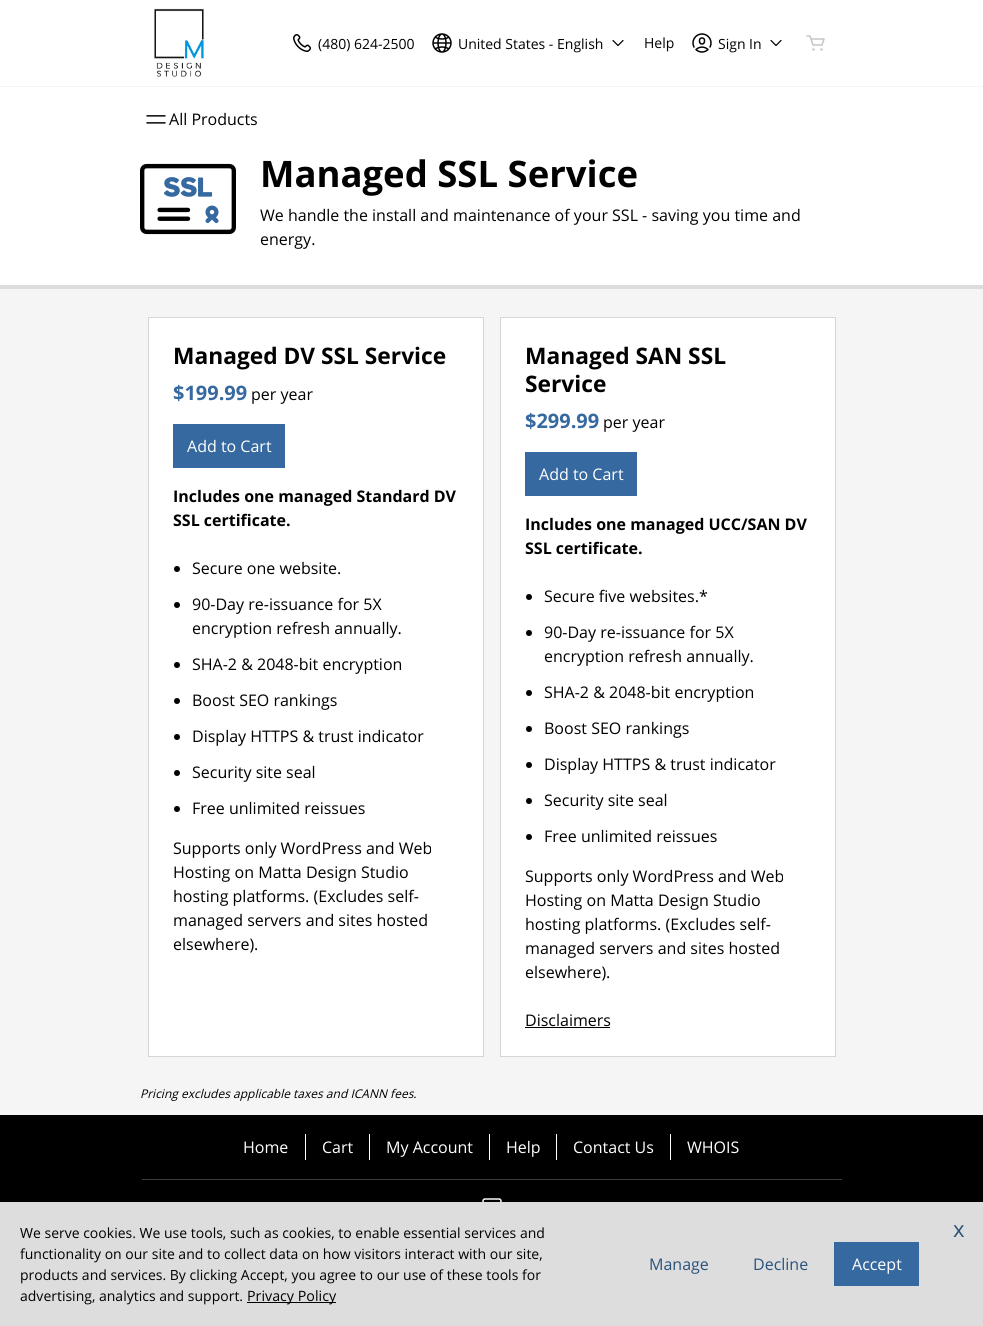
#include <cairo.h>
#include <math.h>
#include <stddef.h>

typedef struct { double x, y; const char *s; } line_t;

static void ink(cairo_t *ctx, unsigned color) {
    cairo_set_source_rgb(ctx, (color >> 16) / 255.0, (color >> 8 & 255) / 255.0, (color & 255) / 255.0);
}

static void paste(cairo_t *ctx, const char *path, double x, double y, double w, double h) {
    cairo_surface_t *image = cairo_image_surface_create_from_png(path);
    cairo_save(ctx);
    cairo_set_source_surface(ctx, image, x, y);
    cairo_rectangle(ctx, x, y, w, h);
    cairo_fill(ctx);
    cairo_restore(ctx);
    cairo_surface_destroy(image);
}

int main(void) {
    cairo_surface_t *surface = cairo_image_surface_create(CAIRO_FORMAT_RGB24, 983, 1326);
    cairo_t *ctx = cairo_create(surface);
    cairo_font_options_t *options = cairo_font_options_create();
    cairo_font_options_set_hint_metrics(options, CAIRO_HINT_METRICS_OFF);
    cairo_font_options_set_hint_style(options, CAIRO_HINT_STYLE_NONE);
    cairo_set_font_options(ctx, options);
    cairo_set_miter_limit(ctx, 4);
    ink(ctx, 0xF5F5F5);
    cairo_paint(ctx);
    ink(ctx, 0xFFFFFF);
    cairo_rectangle(ctx, 0, 0, 983, 86);
    cairo_fill(ctx);
    paste(ctx, "media/1.png", 154, 8, 50, 69);
    paste(ctx, "media/2.png", 293, 34, 18, 18);
    cairo_select_font_face(ctx, "Open Sans", CAIRO_FONT_SLANT_NORMAL, CAIRO_FONT_WEIGHT_NORMAL);
    cairo_set_font_size(ctx, 14);
    ink(ctx, 0x000000);
    cairo_move_to(ctx, 318, 49);
    cairo_show_text(ctx, "(480) 624-2500");
    paste(ctx, "media/3.png", 432, 33, 20, 20);
    cairo_move_to(ctx, 458, 49);
    cairo_show_text(ctx, "United States - English");
    paste(ctx, "media/4.png", 612, 40, 12, 6);
    cairo_move_to(ctx, 644, 48);
    cairo_show_text(ctx, "Help");
    paste(ctx, "media/5.png", 692, 33, 20, 20);
    cairo_move_to(ctx, 718, 49);
    cairo_show_text(ctx, "Sign In");
    paste(ctx, "media/4.png", 770, 40, 12, 6);
    paste(ctx, "media/6.png", 806, 35, 19, 16);
    ink(ctx, 0xFFFFFF);
    cairo_rectangle(ctx, 0, 87, 983, 198);
    cairo_fill(ctx);
    paste(ctx, "media/7.png", 146, 115, 20, 9);
    cairo_set_font_size(ctx, 16);
    ink(ctx, 0x000000);
    cairo_move_to(ctx, 169, 125);
    cairo_show_text(ctx, "All Products");
    ink(ctx, 0xDDDDDD);
    cairo_rectangle(ctx, 0, 285, 983, 4);
    cairo_fill(ctx);
    paste(ctx, "media/8.png", 140, 163, 96, 72);
    cairo_select_font_face(ctx, "Open Sans", CAIRO_FONT_SLANT_NORMAL, CAIRO_FONT_WEIGHT_BOLD);
    cairo_set_font_size(ctx, 36.5);
    ink(ctx, 0x000000);
    cairo_move_to(ctx, 260, 187);
    cairo_show_text(ctx, "Managed SSL Service");
    cairo_select_font_face(ctx, "Open Sans", CAIRO_FONT_SLANT_NORMAL, CAIRO_FONT_WEIGHT_NORMAL);
    cairo_set_font_size(ctx, 16);
    cairo_move_to(ctx, 260, 221);
    cairo_show_text(ctx, "We handle the install and maintenance of your SSL - saving you time and");
    cairo_move_to(ctx, 260, 245);
    cairo_show_text(ctx, "energy.");
    ink(ctx, 0xFFFFFF);
    cairo_rectangle(ctx, 148.5, 317.5, 335, 739);
    cairo_fill_preserve(ctx);
    ink(ctx, 0xD6D6D6);
    cairo_set_line_width(ctx, 1);
    cairo_stroke(ctx);
    cairo_select_font_face(ctx, "Open Sans", CAIRO_FONT_SLANT_NORMAL, CAIRO_FONT_WEIGHT_BOLD);
    cairo_set_font_size(ctx, 22.75);
    ink(ctx, 0x000000);
    cairo_move_to(ctx, 173, 364);
    cairo_show_text(ctx, "Managed DV SSL Service");
    cairo_set_font_size(ctx, 20);
    ink(ctx, 0x36699F);
    cairo_move_to(ctx, 173, 400);
    cairo_show_text(ctx, "$199.99");
    cairo_select_font_face(ctx, "Open Sans", CAIRO_FONT_SLANT_NORMAL, CAIRO_FONT_WEIGHT_NORMAL);
    cairo_set_font_size(ctx, 16);
    ink(ctx, 0x000000);
    cairo_move_to(ctx, 251, 400);
    cairo_show_text(ctx, "per year");
    ink(ctx, 0x36699F);
    cairo_rectangle(ctx, 173, 424, 112, 44);
    cairo_fill(ctx);
    ink(ctx, 0xFFFFFF);
    cairo_move_to(ctx, 187, 452);
    cairo_show_text(ctx, "Add to Cart");
    cairo_select_font_face(ctx, "Open Sans", CAIRO_FONT_SLANT_NORMAL, CAIRO_FONT_WEIGHT_BOLD);
    ink(ctx, 0x000000);
    cairo_move_to(ctx, 173, 502);
    cairo_show_text(ctx, "Includes one managed Standard DV");
    cairo_move_to(ctx, 173, 526);
    cairo_show_text(ctx, "SSL certificate.");
    cairo_new_path(ctx);
    cairo_arc(ctx, 177, 569, 3, 0, 2 * M_PI);
    cairo_fill(ctx);
    cairo_select_font_face(ctx, "Open Sans", CAIRO_FONT_SLANT_NORMAL, CAIRO_FONT_WEIGHT_NORMAL);
    cairo_move_to(ctx, 192, 574);
    cairo_show_text(ctx, "Secure one website.");
    cairo_new_path(ctx);
    cairo_arc(ctx, 177, 605, 3, 0, 2 * M_PI);
    cairo_fill(ctx);
    cairo_move_to(ctx, 192, 610);
    cairo_show_text(ctx, "90-Day re-issuance for 5X");
    cairo_move_to(ctx, 192, 634);
    cairo_show_text(ctx, "encryption refresh annually.");
    cairo_new_path(ctx);
    cairo_arc(ctx, 177, 665, 3, 0, 2 * M_PI);
    cairo_fill(ctx);
    cairo_move_to(ctx, 192, 670);
    cairo_show_text(ctx, "SHA-2 & 2048-bit encryption");
    cairo_new_path(ctx);
    cairo_arc(ctx, 177, 701, 3, 0, 2 * M_PI);
    cairo_fill(ctx);
    cairo_move_to(ctx, 192, 706);
    cairo_show_text(ctx, "Boost SEO rankings");
    cairo_new_path(ctx);
    cairo_arc(ctx, 177, 737, 3, 0, 2 * M_PI);
    cairo_fill(ctx);
    cairo_move_to(ctx, 192, 742);
    cairo_show_text(ctx, "Display HTTPS & trust indicator");
    cairo_new_path(ctx);
    cairo_arc(ctx, 177, 773, 3, 0, 2 * M_PI);
    cairo_fill(ctx);
    cairo_move_to(ctx, 192, 778);
    cairo_show_text(ctx, "Security site seal");
    cairo_new_path(ctx);
    cairo_arc(ctx, 177, 809, 3, 0, 2 * M_PI);
    cairo_fill(ctx);
    {
        static const line_t items[] = {
            {192, 814, "Free unlimited reissues"},
            {173, 854, "Supports only WordPress and Web"},
            {173, 878, "Hosting on Matta Design Studio"},
            {173, 902, "hosting platforms. (Excludes self-"},
            {173, 926, "managed servers and sites hosted"},
            {173, 950, "elsewhere)."},
        };
        for (size_t i = 0; i < sizeof items / sizeof *items; i++) {
            cairo_move_to(ctx, items[i].x, items[i].y);
            cairo_show_text(ctx, items[i].s);
        }
    }
    ink(ctx, 0xFFFFFF);
    cairo_rectangle(ctx, 500.5, 317.5, 335, 739);
    cairo_fill_preserve(ctx);
    ink(ctx, 0xD6D6D6);
    cairo_stroke(ctx);
    cairo_select_font_face(ctx, "Open Sans", CAIRO_FONT_SLANT_NORMAL, CAIRO_FONT_WEIGHT_BOLD);
    cairo_set_font_size(ctx, 22.75);
    ink(ctx, 0x000000);
    cairo_move_to(ctx, 525, 364);
    cairo_show_text(ctx, "Managed SAN SSL");
    cairo_move_to(ctx, 525, 392);
    cairo_show_text(ctx, "Service");
    cairo_set_font_size(ctx, 20);
    ink(ctx, 0x36699F);
    cairo_move_to(ctx, 525, 428);
    cairo_show_text(ctx, "$299.99");
    cairo_select_font_face(ctx, "Open Sans", CAIRO_FONT_SLANT_NORMAL, CAIRO_FONT_WEIGHT_NORMAL);
    cairo_set_font_size(ctx, 16);
    ink(ctx, 0x000000);
    cairo_move_to(ctx, 603, 428);
    cairo_show_text(ctx, "per year");
    ink(ctx, 0x36699F);
    cairo_rectangle(ctx, 525, 452, 112, 44);
    cairo_fill(ctx);
    ink(ctx, 0xFFFFFF);
    cairo_move_to(ctx, 539, 480);
    cairo_show_text(ctx, "Add to Cart");
    cairo_select_font_face(ctx, "Open Sans", CAIRO_FONT_SLANT_NORMAL, CAIRO_FONT_WEIGHT_BOLD);
    ink(ctx, 0x000000);
    cairo_move_to(ctx, 525, 530);
    cairo_show_text(ctx, "Includes one managed UCC/SAN DV");
    cairo_move_to(ctx, 525, 554);
    cairo_show_text(ctx, "SSL certificate.");
    cairo_new_path(ctx);
    cairo_arc(ctx, 529, 597, 3, 0, 2 * M_PI);
    cairo_fill(ctx);
    cairo_select_font_face(ctx, "Open Sans", CAIRO_FONT_SLANT_NORMAL, CAIRO_FONT_WEIGHT_NORMAL);
    cairo_move_to(ctx, 544, 602);
    cairo_show_text(ctx, "Secure five websites.*");
    cairo_new_path(ctx);
    cairo_arc(ctx, 529, 633, 3, 0, 2 * M_PI);
    cairo_fill(ctx);
    cairo_move_to(ctx, 544, 638);
    cairo_show_text(ctx, "90-Day re-issuance for 5X");
    cairo_move_to(ctx, 544, 662);
    cairo_show_text(ctx, "encryption refresh annually.");
    cairo_new_path(ctx);
    cairo_arc(ctx, 529, 693, 3, 0, 2 * M_PI);
    cairo_fill(ctx);
    cairo_move_to(ctx, 544, 698);
    cairo_show_text(ctx, "SHA-2 & 2048-bit encryption");
    cairo_new_path(ctx);
    cairo_arc(ctx, 529, 729, 3, 0, 2 * M_PI);
    cairo_fill(ctx);
    cairo_move_to(ctx, 544, 734);
    cairo_show_text(ctx, "Boost SEO rankings");
    cairo_new_path(ctx);
    cairo_arc(ctx, 529, 765, 3, 0, 2 * M_PI);
    cairo_fill(ctx);
    cairo_move_to(ctx, 544, 770);
    cairo_show_text(ctx, "Display HTTPS & trust indicator");
    cairo_new_path(ctx);
    cairo_arc(ctx, 529, 801, 3, 0, 2 * M_PI);
    cairo_fill(ctx);
    cairo_move_to(ctx, 544, 806);
    cairo_show_text(ctx, "Security site seal");
    cairo_new_path(ctx);
    cairo_arc(ctx, 529, 837, 3, 0, 2 * M_PI);
    cairo_fill(ctx);
    {
        static const line_t items[] = {
            {544, 842, "Free unlimited reissues"},
            {525, 882, "Supports only WordPress and Web"},
            {525, 906, "Hosting on Matta Design Studio"},
            {525, 930, "hosting platforms. (Excludes self-"},
            {525, 954, "managed servers and sites hosted"},
            {525, 978, "elsewhere)."},
            {525, 1026, "Disclaimers"},
        };
        for (size_t i = 0; i < sizeof items / sizeof *items; i++) {
            cairo_move_to(ctx, items[i].x, items[i].y);
            cairo_show_text(ctx, items[i].s);
        }
    }
    cairo_rectangle(ctx, 525, 1027, 85, 1);
    cairo_fill(ctx);
    cairo_select_font_face(ctx, "Open Sans", CAIRO_FONT_SLANT_ITALIC, CAIRO_FONT_WEIGHT_NORMAL);
    cairo_set_font_size(ctx, 12);
    cairo_move_to(ctx, 140, 1098);
    cairo_show_text(ctx, "Pricing excludes applicable taxes and ICANN fees.");
    cairo_rectangle(ctx, 0, 1115, 983, 87);
    cairo_fill(ctx);
    ink(ctx, 0x373D41);
    cairo_rectangle(ctx, 142, 1179, 700, 1);
    cairo_fill(ctx);
    cairo_select_font_face(ctx, "Open Sans", CAIRO_FONT_SLANT_NORMAL, CAIRO_FONT_WEIGHT_NORMAL);
    cairo_set_font_size(ctx, 16);
    ink(ctx, 0xFFFFFF);
    cairo_move_to(ctx, 243, 1153);
    cairo_show_text(ctx, "Home");
    cairo_rectangle(ctx, 305, 1134, 1, 26);
    cairo_fill(ctx);
    cairo_move_to(ctx, 322, 1153);
    cairo_show_text(ctx, "Cart");
    cairo_rectangle(ctx, 369, 1134, 1, 26);
    cairo_fill(ctx);
    cairo_move_to(ctx, 386, 1153);
    cairo_show_text(ctx, "My Account");
    cairo_rectangle(ctx, 489, 1134, 1, 26);
    cairo_fill(ctx);
    cairo_move_to(ctx, 506, 1153);
    cairo_show_text(ctx, "Help");
    cairo_rectangle(ctx, 556, 1134, 1, 26);
    cairo_fill(ctx);
    cairo_move_to(ctx, 573, 1153);
    cairo_show_text(ctx, "Contact Us");
    cairo_rectangle(ctx, 670, 1134, 1, 26);
    cairo_fill(ctx);
    cairo_move_to(ctx, 687, 1153);
    cairo_show_text(ctx, "WHOIS");
    paste(ctx, "media/9.png", 482, 1198, 20, 4);
    ink(ctx, 0xDDDDDD);
    cairo_rectangle(ctx, 0, 1202, 983, 124);
    cairo_fill(ctx);
    cairo_set_font_size(ctx, 14);
    ink(ctx, 0x000000);
    {
        static const line_t items[] = {
            {20, 1238, "We serve cookies. We use tools, such as cookies, to enable essential services and"},
            {20, 1259, "functionality on our site and to collect data on how visitors interact with our site,"},
            {20, 1280, "products and services. By clicking Accept, you agree to our use of these tools for"},
            {20, 1301, "advertising, analytics and support."},
        };
        for (size_t i = 0; i < sizeof items / sizeof *items; i++) {
            cairo_move_to(ctx, items[i].x, items[i].y);
            cairo_show_text(ctx, items[i].s);
        }
    }
    cairo_rectangle(ctx, 247, 1302, 89, 1);
    cairo_fill(ctx);
    cairo_set_font_size(ctx, 14.25);
    cairo_move_to(ctx, 247, 1301);
    cairo_show_text(ctx, "Privacy Policy");
    cairo_set_font_size(ctx, 16);
    ink(ctx, 0x2A527D);
    cairo_move_to(ctx, 649, 1270);
    cairo_show_text(ctx, "Manage");
    cairo_move_to(ctx, 753, 1270);
    cairo_show_text(ctx, "Decline");
    ink(ctx, 0x36699F);
    cairo_rectangle(ctx, 834, 1242, 85, 44);
    cairo_fill(ctx);
    ink(ctx, 0xFFFFFF);
    cairo_move_to(ctx, 852, 1270);
    cairo_show_text(ctx, "Accept");
    cairo_set_font_size(ctx, 22);
    ink(ctx, 0x2A527D);
    cairo_move_to(ctx, 953, 1237);
    cairo_show_text(ctx, "x");
    cairo_surface_write_to_png(surface, "image.png");
    cairo_font_options_destroy(options);
    cairo_destroy(ctx);
    cairo_surface_destroy(surface);
    return 0;
}
